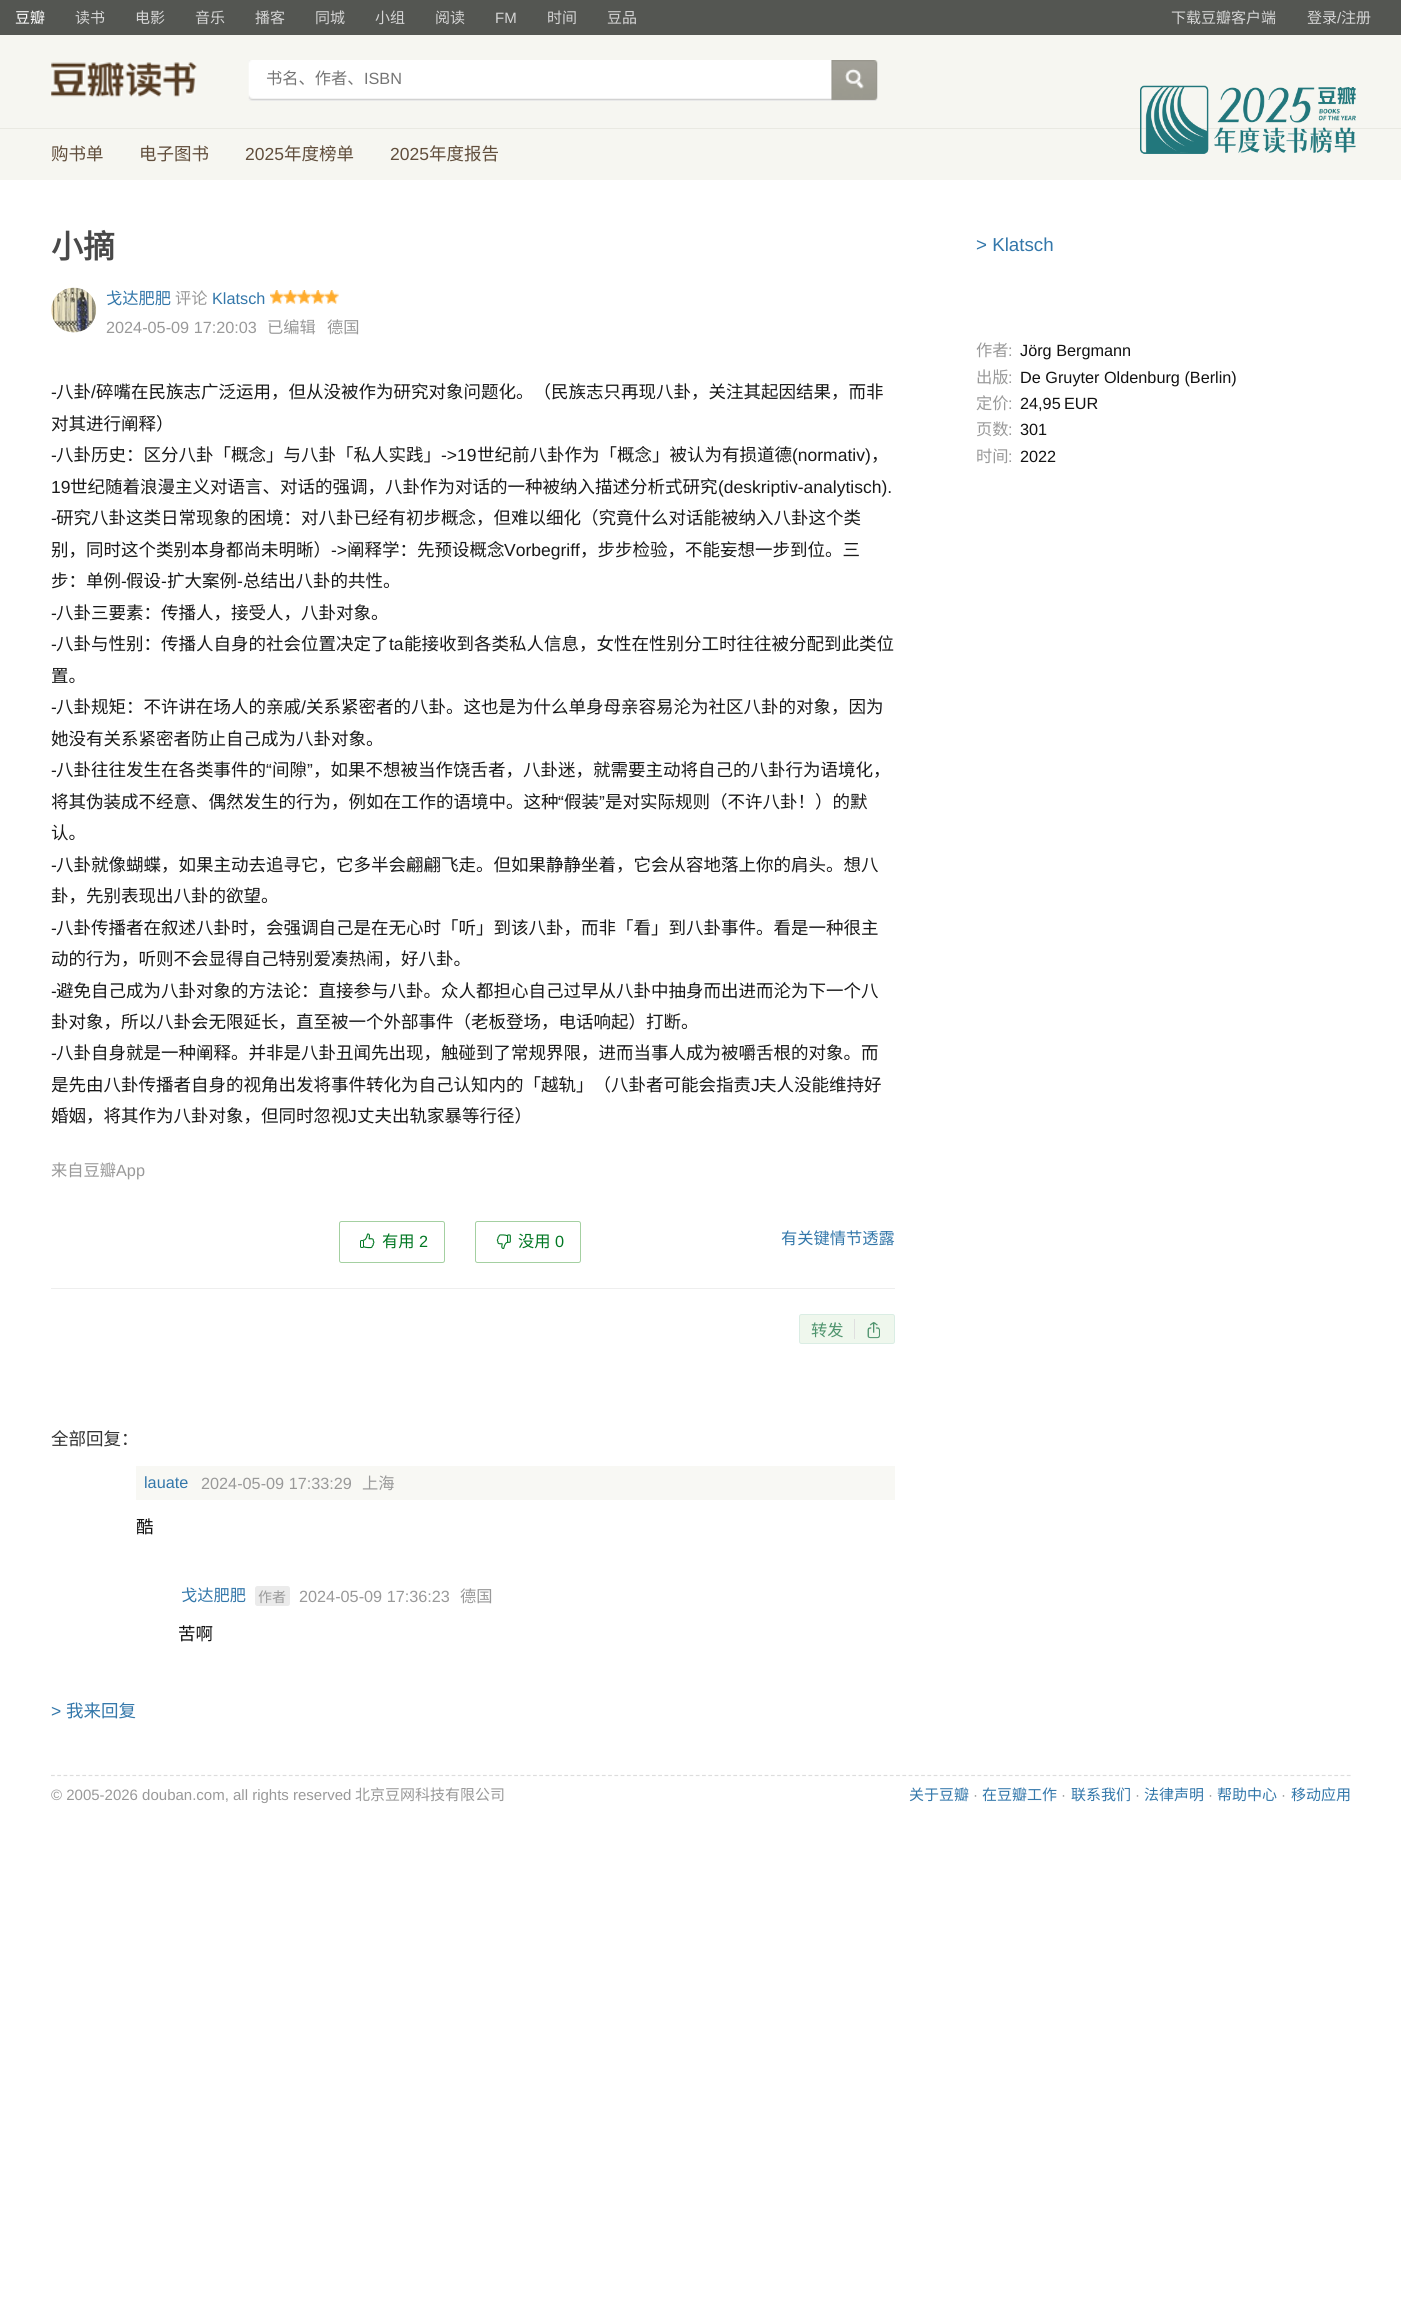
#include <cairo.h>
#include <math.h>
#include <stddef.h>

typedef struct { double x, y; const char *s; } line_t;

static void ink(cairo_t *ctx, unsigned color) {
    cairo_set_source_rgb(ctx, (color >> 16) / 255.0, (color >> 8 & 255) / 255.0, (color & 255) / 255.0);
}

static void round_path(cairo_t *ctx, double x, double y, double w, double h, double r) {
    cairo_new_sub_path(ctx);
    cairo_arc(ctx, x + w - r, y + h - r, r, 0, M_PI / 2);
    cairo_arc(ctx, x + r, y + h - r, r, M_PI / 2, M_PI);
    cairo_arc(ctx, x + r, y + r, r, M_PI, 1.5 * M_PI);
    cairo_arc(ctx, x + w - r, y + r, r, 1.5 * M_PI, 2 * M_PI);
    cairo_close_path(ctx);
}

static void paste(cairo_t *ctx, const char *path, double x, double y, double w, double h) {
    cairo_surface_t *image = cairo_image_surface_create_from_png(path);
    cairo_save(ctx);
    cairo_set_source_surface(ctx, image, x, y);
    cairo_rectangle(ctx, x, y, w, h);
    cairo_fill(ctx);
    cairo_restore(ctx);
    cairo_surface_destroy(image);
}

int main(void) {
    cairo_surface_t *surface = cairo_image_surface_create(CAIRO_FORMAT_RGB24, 1401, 2317);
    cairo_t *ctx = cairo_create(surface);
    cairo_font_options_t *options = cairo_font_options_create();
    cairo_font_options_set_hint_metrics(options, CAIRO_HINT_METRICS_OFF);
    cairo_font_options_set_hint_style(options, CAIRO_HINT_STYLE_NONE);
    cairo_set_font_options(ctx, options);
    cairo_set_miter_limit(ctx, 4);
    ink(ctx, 0xFFFFFF);
    cairo_paint(ctx);
    ink(ctx, 0x545652);
    cairo_rectangle(ctx, 0, 0, 1401, 35);
    cairo_fill(ctx);
    cairo_select_font_face(ctx, "Noto Sans CJK SC", CAIRO_FONT_SLANT_NORMAL, CAIRO_FONT_WEIGHT_NORMAL);
    cairo_set_font_size(ctx, 15);
    ink(ctx, 0xFFFFFF);
    cairo_move_to(ctx, 15, 23);
    cairo_show_text(ctx, "豆瓣");
    ink(ctx, 0xD5D5D5);
    {
        static const line_t items[] = {
            {75, 23, "读书"},
            {135, 23, "电影"},
            {195, 23, "音乐"},
            {255, 23, "播客"},
            {315, 23, "同城"},
            {375, 23, "小组"},
            {435, 23, "阅读"},
        };
        for (size_t i = 0; i < sizeof items / sizeof *items; i++) {
            cairo_move_to(ctx, items[i].x, items[i].y);
            cairo_show_text(ctx, items[i].s);
        }
    }
    cairo_select_font_face(ctx, "Liberation Sans", CAIRO_FONT_SLANT_NORMAL, CAIRO_FONT_WEIGHT_NORMAL);
    cairo_move_to(ctx, 495, 23);
    cairo_show_text(ctx, "FM");
    cairo_select_font_face(ctx, "Noto Sans CJK SC", CAIRO_FONT_SLANT_NORMAL, CAIRO_FONT_WEIGHT_NORMAL);
    {
        static const line_t items[] = {
            {547, 23, "时间"},
            {607, 23, "豆品"},
            {1171, 23, "下载豆瓣客户端"},
            {1307, 23, "登录"},
        };
        for (size_t i = 0; i < sizeof items / sizeof *items; i++) {
            cairo_move_to(ctx, items[i].x, items[i].y);
            cairo_show_text(ctx, items[i].s);
        }
    }
    cairo_select_font_face(ctx, "Liberation Sans", CAIRO_FONT_SLANT_NORMAL, CAIRO_FONT_WEIGHT_NORMAL);
    cairo_move_to(ctx, 1337, 23);
    cairo_show_text(ctx, "/");
    cairo_select_font_face(ctx, "Noto Sans CJK SC", CAIRO_FONT_SLANT_NORMAL, CAIRO_FONT_WEIGHT_NORMAL);
    cairo_move_to(ctx, 1341, 23);
    cairo_show_text(ctx, "注册");
    ink(ctx, 0xF6F6F1);
    cairo_rectangle(ctx, 0, 35, 1401, 145);
    cairo_fill(ctx);
    ink(ctx, 0xE9E9E2);
    cairo_rectangle(ctx, 0, 128, 1401, 1);
    cairo_fill(ctx);
    paste(ctx, "media/1.png", 51, 62, 146, 35);
    paste(ctx, "media/2.png", 248, 60, 584, 41);
    cairo_set_font_size(ctx, 16.25);
    ink(ctx, 0x757575);
    cairo_move_to(ctx, 266, 84);
    cairo_show_text(ctx, "书名、作者、");
    cairo_select_font_face(ctx, "Liberation Sans", CAIRO_FONT_SLANT_NORMAL, CAIRO_FONT_WEIGHT_NORMAL);
    cairo_move_to(ctx, 364, 84);
    cairo_show_text(ctx, "ISBN");
    paste(ctx, "media/3.png", 831, 60, 47, 41);
    cairo_select_font_face(ctx, "Noto Sans CJK SC", CAIRO_FONT_SLANT_NORMAL, CAIRO_FONT_WEIGHT_NORMAL);
    cairo_set_font_size(ctx, 17.5);
    ink(ctx, 0x614E3C);
    cairo_move_to(ctx, 51, 160);
    cairo_show_text(ctx, "购书单");
    cairo_move_to(ctx, 139, 160);
    cairo_show_text(ctx, "电子图书");
    cairo_select_font_face(ctx, "Liberation Sans", CAIRO_FONT_SLANT_NORMAL, CAIRO_FONT_WEIGHT_NORMAL);
    cairo_move_to(ctx, 245, 160);
    cairo_show_text(ctx, "2025");
    cairo_select_font_face(ctx, "Noto Sans CJK SC", CAIRO_FONT_SLANT_NORMAL, CAIRO_FONT_WEIGHT_NORMAL);
    cairo_move_to(ctx, 284, 160);
    cairo_show_text(ctx, "年度榜单");
    cairo_select_font_face(ctx, "Liberation Sans", CAIRO_FONT_SLANT_NORMAL, CAIRO_FONT_WEIGHT_NORMAL);
    cairo_move_to(ctx, 390, 160);
    cairo_show_text(ctx, "2025");
    cairo_select_font_face(ctx, "Noto Sans CJK SC", CAIRO_FONT_SLANT_NORMAL, CAIRO_FONT_WEIGHT_NORMAL);
    cairo_move_to(ctx, 429, 160);
    cairo_show_text(ctx, "年度报告");
    paste(ctx, "media/4.png", 1140, 85, 216, 69);
    cairo_select_font_face(ctx, "Noto Sans CJK SC", CAIRO_FONT_SLANT_NORMAL, CAIRO_FONT_WEIGHT_BOLD);
    cairo_set_font_size(ctx, 32);
    ink(ctx, 0x494949);
    cairo_move_to(ctx, 51, 258);
    cairo_show_text(ctx, "小摘");
    paste(ctx, "media/5.png", 51, 287, 46, 46);
    cairo_select_font_face(ctx, "Noto Sans CJK SC", CAIRO_FONT_SLANT_NORMAL, CAIRO_FONT_WEIGHT_NORMAL);
    cairo_set_font_size(ctx, 16.25);
    ink(ctx, 0x3377AA);
    cairo_move_to(ctx, 106, 304);
    cairo_show_text(ctx, "戈达肥肥");
    ink(ctx, 0x999999);
    cairo_move_to(ctx, 175, 304);
    cairo_show_text(ctx, "评论");
    cairo_select_font_face(ctx, "Liberation Sans", CAIRO_FONT_SLANT_NORMAL, CAIRO_FONT_WEIGHT_NORMAL);
    ink(ctx, 0x3377AA);
    cairo_move_to(ctx, 212, 304);
    cairo_show_text(ctx, "Klatsch");
    paste(ctx, "media/6.png", 270, 290, 69, 14);
    ink(ctx, 0x999999);
    cairo_move_to(ctx, 106, 333);
    cairo_show_text(ctx, "2024-05-09 17:20:03");
    cairo_select_font_face(ctx, "Noto Sans CJK SC", CAIRO_FONT_SLANT_NORMAL, CAIRO_FONT_WEIGHT_NORMAL);
    cairo_move_to(ctx, 267, 333);
    cairo_show_text(ctx, "已编辑");
    cairo_move_to(ctx, 327, 333);
    cairo_show_text(ctx, "德国");
    cairo_select_font_face(ctx, "Liberation Sans", CAIRO_FONT_SLANT_NORMAL, CAIRO_FONT_WEIGHT_NORMAL);
    cairo_set_font_size(ctx, 17.5);
    ink(ctx, 0x191919);
    cairo_move_to(ctx, 51, 398);
    cairo_show_text(ctx, "-");
    cairo_select_font_face(ctx, "Noto Sans CJK SC", CAIRO_FONT_SLANT_NORMAL, CAIRO_FONT_WEIGHT_NORMAL);
    cairo_move_to(ctx, 56, 398);
    cairo_show_text(ctx, "八卦");
    cairo_select_font_face(ctx, "Liberation Sans", CAIRO_FONT_SLANT_NORMAL, CAIRO_FONT_WEIGHT_NORMAL);
    cairo_move_to(ctx, 91, 398);
    cairo_show_text(ctx, "/");
    cairo_select_font_face(ctx, "Noto Sans CJK SC", CAIRO_FONT_SLANT_NORMAL, CAIRO_FONT_WEIGHT_NORMAL);
    cairo_move_to(ctx, 96, 398);
    cairo_show_text(ctx, "碎嘴在民族志广泛运用，但从没被作为研究对象问题化。（民族志只再现八卦，关注其起因结果，而非");
    cairo_move_to(ctx, 51, 430);
    cairo_show_text(ctx, "对其进行阐释）");
    cairo_select_font_face(ctx, "Liberation Sans", CAIRO_FONT_SLANT_NORMAL, CAIRO_FONT_WEIGHT_NORMAL);
    cairo_move_to(ctx, 51, 461);
    cairo_show_text(ctx, "-");
    cairo_select_font_face(ctx, "Noto Sans CJK SC", CAIRO_FONT_SLANT_NORMAL, CAIRO_FONT_WEIGHT_NORMAL);
    cairo_move_to(ctx, 56, 461);
    cairo_show_text(ctx, "八卦历史：区分八卦「概念」与八卦「私人实践」");
    cairo_select_font_face(ctx, "Liberation Sans", CAIRO_FONT_SLANT_NORMAL, CAIRO_FONT_WEIGHT_NORMAL);
    cairo_move_to(ctx, 441, 461);
    cairo_show_text(ctx, "->19");
    cairo_select_font_face(ctx, "Noto Sans CJK SC", CAIRO_FONT_SLANT_NORMAL, CAIRO_FONT_WEIGHT_NORMAL);
    cairo_move_to(ctx, 477, 461);
    cairo_show_text(ctx, "世纪前八卦作为「概念」被认为有损道德");
    cairo_select_font_face(ctx, "Liberation Sans", CAIRO_FONT_SLANT_NORMAL, CAIRO_FONT_WEIGHT_NORMAL);
    cairo_move_to(ctx, 792, 461);
    cairo_show_text(ctx, "(normativ)");
    cairo_select_font_face(ctx, "Noto Sans CJK SC", CAIRO_FONT_SLANT_NORMAL, CAIRO_FONT_WEIGHT_NORMAL);
    cairo_move_to(ctx, 871, 461);
    cairo_show_text(ctx, "，");
    cairo_select_font_face(ctx, "Liberation Sans", CAIRO_FONT_SLANT_NORMAL, CAIRO_FONT_WEIGHT_NORMAL);
    cairo_move_to(ctx, 51, 493);
    cairo_show_text(ctx, "19");
    cairo_select_font_face(ctx, "Noto Sans CJK SC", CAIRO_FONT_SLANT_NORMAL, CAIRO_FONT_WEIGHT_NORMAL);
    cairo_move_to(ctx, 70, 493);
    cairo_show_text(ctx, "世纪随着浪漫主义对语言、对话的强调，八卦作为对话的一种被纳入描述分析式研究");
    cairo_select_font_face(ctx, "Liberation Sans", CAIRO_FONT_SLANT_NORMAL, CAIRO_FONT_WEIGHT_NORMAL);
    cairo_move_to(ctx, 718, 493);
    cairo_show_text(ctx, "(deskriptiv-analytisch).");
    cairo_move_to(ctx, 51, 524);
    cairo_show_text(ctx, "-");
    cairo_select_font_face(ctx, "Noto Sans CJK SC", CAIRO_FONT_SLANT_NORMAL, CAIRO_FONT_WEIGHT_NORMAL);
    cairo_move_to(ctx, 56, 524);
    cairo_show_text(ctx, "研究八卦这类日常现象的困境：对八卦已经有初步概念，但难以细化（究竟什么对话能被纳入八卦这个类");
    cairo_move_to(ctx, 51, 556);
    cairo_show_text(ctx, "别，同时这个类别本身都尚未明晰）");
    cairo_select_font_face(ctx, "Liberation Sans", CAIRO_FONT_SLANT_NORMAL, CAIRO_FONT_WEIGHT_NORMAL);
    cairo_move_to(ctx, 331, 556);
    cairo_show_text(ctx, "->");
    cairo_select_font_face(ctx, "Noto Sans CJK SC", CAIRO_FONT_SLANT_NORMAL, CAIRO_FONT_WEIGHT_NORMAL);
    cairo_move_to(ctx, 347, 556);
    cairo_show_text(ctx, "阐释学：先预设概念");
    cairo_select_font_face(ctx, "Liberation Sans", CAIRO_FONT_SLANT_NORMAL, CAIRO_FONT_WEIGHT_NORMAL);
    cairo_move_to(ctx, 504, 556);
    cairo_show_text(ctx, "Vorbegriff");
    cairo_select_font_face(ctx, "Noto Sans CJK SC", CAIRO_FONT_SLANT_NORMAL, CAIRO_FONT_WEIGHT_NORMAL);
    cairo_move_to(ctx, 580, 556);
    cairo_show_text(ctx, "，步步检验，不能妄想一步到位。三");
    cairo_move_to(ctx, 51, 587);
    cairo_show_text(ctx, "步：单例");
    cairo_select_font_face(ctx, "Liberation Sans", CAIRO_FONT_SLANT_NORMAL, CAIRO_FONT_WEIGHT_NORMAL);
    cairo_move_to(ctx, 121, 587);
    cairo_show_text(ctx, "-");
    cairo_select_font_face(ctx, "Noto Sans CJK SC", CAIRO_FONT_SLANT_NORMAL, CAIRO_FONT_WEIGHT_NORMAL);
    cairo_move_to(ctx, 126, 587);
    cairo_show_text(ctx, "假设");
    cairo_select_font_face(ctx, "Liberation Sans", CAIRO_FONT_SLANT_NORMAL, CAIRO_FONT_WEIGHT_NORMAL);
    cairo_move_to(ctx, 161, 587);
    cairo_show_text(ctx, "-");
    cairo_select_font_face(ctx, "Noto Sans CJK SC", CAIRO_FONT_SLANT_NORMAL, CAIRO_FONT_WEIGHT_NORMAL);
    cairo_move_to(ctx, 167, 587);
    cairo_show_text(ctx, "扩大案例");
    cairo_select_font_face(ctx, "Liberation Sans", CAIRO_FONT_SLANT_NORMAL, CAIRO_FONT_WEIGHT_NORMAL);
    cairo_move_to(ctx, 237, 587);
    cairo_show_text(ctx, "-");
    cairo_select_font_face(ctx, "Noto Sans CJK SC", CAIRO_FONT_SLANT_NORMAL, CAIRO_FONT_WEIGHT_NORMAL);
    cairo_move_to(ctx, 243, 587);
    cairo_show_text(ctx, "总结出八卦的共性。");
    cairo_select_font_face(ctx, "Liberation Sans", CAIRO_FONT_SLANT_NORMAL, CAIRO_FONT_WEIGHT_NORMAL);
    cairo_move_to(ctx, 51, 619);
    cairo_show_text(ctx, "-");
    cairo_select_font_face(ctx, "Noto Sans CJK SC", CAIRO_FONT_SLANT_NORMAL, CAIRO_FONT_WEIGHT_NORMAL);
    cairo_move_to(ctx, 56, 619);
    cairo_show_text(ctx, "八卦三要素：传播人，接受人，八卦对象。");
    cairo_select_font_face(ctx, "Liberation Sans", CAIRO_FONT_SLANT_NORMAL, CAIRO_FONT_WEIGHT_NORMAL);
    cairo_move_to(ctx, 51, 650);
    cairo_show_text(ctx, "-");
    cairo_select_font_face(ctx, "Noto Sans CJK SC", CAIRO_FONT_SLANT_NORMAL, CAIRO_FONT_WEIGHT_NORMAL);
    cairo_move_to(ctx, 56, 650);
    cairo_show_text(ctx, "八卦与性别：传播人自身的社会位置决定了");
    cairo_select_font_face(ctx, "Liberation Sans", CAIRO_FONT_SLANT_NORMAL, CAIRO_FONT_WEIGHT_NORMAL);
    cairo_move_to(ctx, 389, 650);
    cairo_show_text(ctx, "ta");
    cairo_select_font_face(ctx, "Noto Sans CJK SC", CAIRO_FONT_SLANT_NORMAL, CAIRO_FONT_WEIGHT_NORMAL);
    cairo_move_to(ctx, 404, 650);
    cairo_show_text(ctx, "能接收到各类私人信息，女性在性别分工时往往被分配到此类位");
    cairo_move_to(ctx, 51, 682);
    cairo_show_text(ctx, "置。");
    cairo_select_font_face(ctx, "Liberation Sans", CAIRO_FONT_SLANT_NORMAL, CAIRO_FONT_WEIGHT_NORMAL);
    cairo_move_to(ctx, 51, 713);
    cairo_show_text(ctx, "-");
    cairo_select_font_face(ctx, "Noto Sans CJK SC", CAIRO_FONT_SLANT_NORMAL, CAIRO_FONT_WEIGHT_NORMAL);
    cairo_move_to(ctx, 56, 713);
    cairo_show_text(ctx, "八卦规矩：不许讲在场人的亲戚");
    cairo_select_font_face(ctx, "Liberation Sans", CAIRO_FONT_SLANT_NORMAL, CAIRO_FONT_WEIGHT_NORMAL);
    cairo_move_to(ctx, 301, 713);
    cairo_show_text(ctx, "/");
    cairo_select_font_face(ctx, "Noto Sans CJK SC", CAIRO_FONT_SLANT_NORMAL, CAIRO_FONT_WEIGHT_NORMAL);
    {
        static const line_t items[] = {
            {306, 713, "关系紧密者的八卦。这也是为什么单身母亲容易沦为社区八卦的对象，因为"},
            {51, 745, "她没有关系紧密者防止自己成为八卦对象。"},
            {56, 776, "八卦往往发生在各类事件的"},
        };
        for (size_t i = 0; i < sizeof items / sizeof *items; i++) {
            cairo_move_to(ctx, items[i].x, items[i].y);
            cairo_show_text(ctx, items[i].s);
        }
    }
    cairo_select_font_face(ctx, "Liberation Sans", CAIRO_FONT_SLANT_NORMAL, CAIRO_FONT_WEIGHT_NORMAL);
    cairo_move_to(ctx, 266, 776);
    cairo_show_text(ctx, "“");
    cairo_select_font_face(ctx, "Noto Sans CJK SC", CAIRO_FONT_SLANT_NORMAL, CAIRO_FONT_WEIGHT_NORMAL);
    cairo_move_to(ctx, 272, 776);
    cairo_show_text(ctx, "间隙");
    cairo_select_font_face(ctx, "Liberation Sans", CAIRO_FONT_SLANT_NORMAL, CAIRO_FONT_WEIGHT_NORMAL);
    cairo_move_to(ctx, 307, 776);
    cairo_show_text(ctx, "”");
    cairo_select_font_face(ctx, "Noto Sans CJK SC", CAIRO_FONT_SLANT_NORMAL, CAIRO_FONT_WEIGHT_NORMAL);
    cairo_move_to(ctx, 313, 776);
    cairo_show_text(ctx, "，如果不想被当作饶舌者，八卦迷，就需要主动将自己的八卦行为语境化，");
    cairo_select_font_face(ctx, "Liberation Sans", CAIRO_FONT_SLANT_NORMAL, CAIRO_FONT_WEIGHT_NORMAL);
    cairo_move_to(ctx, 51, 776);
    cairo_show_text(ctx, "-");
    cairo_select_font_face(ctx, "Noto Sans CJK SC", CAIRO_FONT_SLANT_NORMAL, CAIRO_FONT_WEIGHT_NORMAL);
    cairo_move_to(ctx, 51, 808);
    cairo_show_text(ctx, "将其伪装成不经意、偶然发生的行为，例如在工作的语境中。这种");
    cairo_select_font_face(ctx, "Liberation Sans", CAIRO_FONT_SLANT_NORMAL, CAIRO_FONT_WEIGHT_NORMAL);
    cairo_move_to(ctx, 558, 808);
    cairo_show_text(ctx, "“");
    cairo_select_font_face(ctx, "Noto Sans CJK SC", CAIRO_FONT_SLANT_NORMAL, CAIRO_FONT_WEIGHT_NORMAL);
    cairo_move_to(ctx, 564, 808);
    cairo_show_text(ctx, "假装");
    cairo_select_font_face(ctx, "Liberation Sans", CAIRO_FONT_SLANT_NORMAL, CAIRO_FONT_WEIGHT_NORMAL);
    cairo_move_to(ctx, 599, 808);
    cairo_show_text(ctx, "”");
    cairo_select_font_face(ctx, "Noto Sans CJK SC", CAIRO_FONT_SLANT_NORMAL, CAIRO_FONT_WEIGHT_NORMAL);
    cairo_move_to(ctx, 605, 808);
    cairo_show_text(ctx, "是对实际规则（不许八卦！）的默");
    cairo_move_to(ctx, 51, 839);
    cairo_show_text(ctx, "认。");
    cairo_select_font_face(ctx, "Liberation Sans", CAIRO_FONT_SLANT_NORMAL, CAIRO_FONT_WEIGHT_NORMAL);
    cairo_move_to(ctx, 51, 871);
    cairo_show_text(ctx, "-");
    cairo_select_font_face(ctx, "Noto Sans CJK SC", CAIRO_FONT_SLANT_NORMAL, CAIRO_FONT_WEIGHT_NORMAL);
    cairo_move_to(ctx, 56, 871);
    cairo_show_text(ctx, "八卦就像蝴蝶，如果主动去追寻它，它多半会翩翩飞走。但如果静静坐着，它会从容地落上你的肩头。想八");
    cairo_move_to(ctx, 51, 902);
    cairo_show_text(ctx, "卦，先别表现出八卦的欲望。");
    cairo_select_font_face(ctx, "Liberation Sans", CAIRO_FONT_SLANT_NORMAL, CAIRO_FONT_WEIGHT_NORMAL);
    cairo_move_to(ctx, 51, 934);
    cairo_show_text(ctx, "-");
    cairo_select_font_face(ctx, "Noto Sans CJK SC", CAIRO_FONT_SLANT_NORMAL, CAIRO_FONT_WEIGHT_NORMAL);
    cairo_move_to(ctx, 56, 934);
    cairo_show_text(ctx, "八卦传播者在叙述八卦时，会强调自己是在无心时「听」到该八卦，而非「看」到八卦事件。看是一种很主");
    cairo_move_to(ctx, 51, 965);
    cairo_show_text(ctx, "动的行为，听则不会显得自己特别爱凑热闹，好八卦。");
    cairo_select_font_face(ctx, "Liberation Sans", CAIRO_FONT_SLANT_NORMAL, CAIRO_FONT_WEIGHT_NORMAL);
    cairo_move_to(ctx, 51, 997);
    cairo_show_text(ctx, "-");
    cairo_select_font_face(ctx, "Noto Sans CJK SC", CAIRO_FONT_SLANT_NORMAL, CAIRO_FONT_WEIGHT_NORMAL);
    cairo_move_to(ctx, 56, 997);
    cairo_show_text(ctx, "避免自己成为八卦对象的方法论：直接参与八卦。众人都担心自己过早从八卦中抽身而出进而沦为下一个八");
    cairo_move_to(ctx, 51, 1028);
    cairo_show_text(ctx, "卦对象，所以八卦会无限延长，直至被一个外部事件（老板登场，电话响起）打断。");
    cairo_select_font_face(ctx, "Liberation Sans", CAIRO_FONT_SLANT_NORMAL, CAIRO_FONT_WEIGHT_NORMAL);
    cairo_move_to(ctx, 51, 1059);
    cairo_show_text(ctx, "-");
    cairo_select_font_face(ctx, "Noto Sans CJK SC", CAIRO_FONT_SLANT_NORMAL, CAIRO_FONT_WEIGHT_NORMAL);
    cairo_move_to(ctx, 56, 1059);
    cairo_show_text(ctx, "八卦自身就是一种阐释。并非是八卦丑闻先出现，触碰到了常规界限，进而当事人成为被嚼舌根的对象。而");
    cairo_move_to(ctx, 51, 1091);
    cairo_show_text(ctx, "是先由八卦传播者自身的视角出发将事件转化为自己认知内的「越轨」（八卦者可能会指责");
    cairo_select_font_face(ctx, "Liberation Sans", CAIRO_FONT_SLANT_NORMAL, CAIRO_FONT_WEIGHT_NORMAL);
    cairo_move_to(ctx, 751, 1091);
    cairo_show_text(ctx, "J");
    cairo_select_font_face(ctx, "Noto Sans CJK SC", CAIRO_FONT_SLANT_NORMAL, CAIRO_FONT_WEIGHT_NORMAL);
    cairo_move_to(ctx, 759, 1091);
    cairo_show_text(ctx, "夫人没能维持好");
    cairo_move_to(ctx, 51, 1122);
    cairo_show_text(ctx, "婚姻，将其作为八卦对象，但同时忽视");
    cairo_select_font_face(ctx, "Liberation Sans", CAIRO_FONT_SLANT_NORMAL, CAIRO_FONT_WEIGHT_NORMAL);
    cairo_move_to(ctx, 348, 1122);
    cairo_show_text(ctx, "J");
    cairo_select_font_face(ctx, "Noto Sans CJK SC", CAIRO_FONT_SLANT_NORMAL, CAIRO_FONT_WEIGHT_NORMAL);
    cairo_move_to(ctx, 357, 1122);
    cairo_show_text(ctx, "丈夫出轨家暴等行径）");
    cairo_set_font_size(ctx, 16.25);
    ink(ctx, 0x999999);
    cairo_move_to(ctx, 51, 1176);
    cairo_show_text(ctx, "来自豆瓣");
    cairo_select_font_face(ctx, "Liberation Sans", CAIRO_FONT_SLANT_NORMAL, CAIRO_FONT_WEIGHT_NORMAL);
    cairo_move_to(ctx, 116, 1176);
    cairo_show_text(ctx, "App");
    ink(ctx, 0xEEEEEE);
    cairo_rectangle(ctx, 51, 1288, 844, 1);
    cairo_fill(ctx);
    round_path(ctx, 339.5, 1221.5, 105, 41, 2);
    ink(ctx, 0xA4D0A1);
    cairo_set_line_width(ctx, 1);
    cairo_stroke(ctx);
    paste(ctx, "media/7.png", 360, 1233, 15, 16);
    cairo_select_font_face(ctx, "Noto Sans CJK SC", CAIRO_FONT_SLANT_NORMAL, CAIRO_FONT_WEIGHT_NORMAL);
    ink(ctx, 0x007722);
    cairo_move_to(ctx, 382, 1247);
    cairo_show_text(ctx, "有用");
    cairo_select_font_face(ctx, "Liberation Sans", CAIRO_FONT_SLANT_NORMAL, CAIRO_FONT_WEIGHT_NORMAL);
    cairo_move_to(ctx, 419, 1247);
    cairo_show_text(ctx, "2");
    round_path(ctx, 475.5, 1221.5, 105, 41, 2);
    ink(ctx, 0xA4D0A1);
    cairo_stroke(ctx);
    paste(ctx, "media/8.png", 496, 1234, 15, 15);
    cairo_select_font_face(ctx, "Noto Sans CJK SC", CAIRO_FONT_SLANT_NORMAL, CAIRO_FONT_WEIGHT_NORMAL);
    ink(ctx, 0x007722);
    cairo_move_to(ctx, 518, 1247);
    cairo_show_text(ctx, "没用");
    cairo_select_font_face(ctx, "Liberation Sans", CAIRO_FONT_SLANT_NORMAL, CAIRO_FONT_WEIGHT_NORMAL);
    cairo_move_to(ctx, 555, 1247);
    cairo_show_text(ctx, "0");
    cairo_select_font_face(ctx, "Noto Sans CJK SC", CAIRO_FONT_SLANT_NORMAL, CAIRO_FONT_WEIGHT_NORMAL);
    ink(ctx, 0x3377AA);
    cairo_move_to(ctx, 781, 1244);
    cairo_show_text(ctx, "有关键情节透露");
    ink(ctx, 0xEFF7ED);
    round_path(ctx, 799.5, 1314.5, 95, 29, 2);
    cairo_fill_preserve(ctx);
    ink(ctx, 0xDAEDE4);
    cairo_stroke(ctx);
    ink(ctx, 0x4F946E);
    cairo_move_to(ctx, 811, 1336);
    cairo_show_text(ctx, "转发");
    ink(ctx, 0xDFDFDF);
    cairo_rectangle(ctx, 854, 1319, 1, 20);
    cairo_fill(ctx);
    paste(ctx, "media/9.png", 867, 1322, 13, 17);
    cairo_set_font_size(ctx, 17.5);
    ink(ctx, 0x333333);
    cairo_move_to(ctx, 51, 1445);
    cairo_show_text(ctx, "全部回复：");
    ink(ctx, 0xF8F8F4);
    cairo_rectangle(ctx, 136, 1466, 759, 34);
    cairo_fill(ctx);
    cairo_select_font_face(ctx, "Liberation Sans", CAIRO_FONT_SLANT_NORMAL, CAIRO_FONT_WEIGHT_NORMAL);
    cairo_set_font_size(ctx, 16.25);
    ink(ctx, 0x3377AA);
    cairo_move_to(ctx, 144, 1488);
    cairo_show_text(ctx, "lauate");
    ink(ctx, 0x999999);
    cairo_move_to(ctx, 201, 1489);
    cairo_show_text(ctx, "2024-05-09 17:33:29");
    cairo_select_font_face(ctx, "Noto Sans CJK SC", CAIRO_FONT_SLANT_NORMAL, CAIRO_FONT_WEIGHT_NORMAL);
    cairo_move_to(ctx, 362, 1489);
    cairo_show_text(ctx, "上海");
    cairo_set_font_size(ctx, 17.5);
    ink(ctx, 0x111111);
    cairo_move_to(ctx, 136, 1533);
    cairo_show_text(ctx, "酷");
    cairo_set_font_size(ctx, 16.25);
    ink(ctx, 0x3377AA);
    cairo_move_to(ctx, 181, 1601);
    cairo_show_text(ctx, "戈达肥肥");
    ink(ctx, 0xEBEBEB);
    round_path(ctx, 255, 1586, 35, 20, 2.5);
    cairo_fill(ctx);
    cairo_set_font_size(ctx, 14);
    ink(ctx, 0x999999);
    cairo_move_to(ctx, 258, 1602);
    cairo_show_text(ctx, "作者");
    cairo_select_font_face(ctx, "Liberation Sans", CAIRO_FONT_SLANT_NORMAL, CAIRO_FONT_WEIGHT_NORMAL);
    cairo_set_font_size(ctx, 16.25);
    cairo_move_to(ctx, 299, 1602);
    cairo_show_text(ctx, "2024-05-09 17:36:23");
    cairo_select_font_face(ctx, "Noto Sans CJK SC", CAIRO_FONT_SLANT_NORMAL, CAIRO_FONT_WEIGHT_NORMAL);
    cairo_move_to(ctx, 460, 1602);
    cairo_show_text(ctx, "德国");
    cairo_set_font_size(ctx, 17.5);
    ink(ctx, 0x111111);
    cairo_move_to(ctx, 178, 1640);
    cairo_show_text(ctx, "苦啊");
    cairo_select_font_face(ctx, "Liberation Sans", CAIRO_FONT_SLANT_NORMAL, CAIRO_FONT_WEIGHT_NORMAL);
    ink(ctx, 0x3377AA);
    cairo_move_to(ctx, 51, 1717);
    cairo_show_text(ctx, ">");
    cairo_select_font_face(ctx, "Noto Sans CJK SC", CAIRO_FONT_SLANT_NORMAL, CAIRO_FONT_WEIGHT_NORMAL);
    cairo_move_to(ctx, 66, 1717);
    cairo_show_text(ctx, "我来回复");
    cairo_select_font_face(ctx, "Liberation Sans", CAIRO_FONT_SLANT_NORMAL, CAIRO_FONT_WEIGHT_NORMAL);
    cairo_set_font_size(ctx, 18.75);
    cairo_move_to(ctx, 976, 251);
    cairo_show_text(ctx, "> Klatsch");
    cairo_select_font_face(ctx, "Noto Sans CJK SC", CAIRO_FONT_SLANT_NORMAL, CAIRO_FONT_WEIGHT_NORMAL);
    cairo_set_font_size(ctx, 16.25);
    ink(ctx, 0x999999);
    cairo_move_to(ctx, 976, 356);
    cairo_show_text(ctx, "作者");
    cairo_select_font_face(ctx, "Liberation Sans", CAIRO_FONT_SLANT_NORMAL, CAIRO_FONT_WEIGHT_NORMAL);
    cairo_move_to(ctx, 1008, 356);
    cairo_show_text(ctx, ":");
    ink(ctx, 0x111111);
    cairo_move_to(ctx, 1020, 356);
    cairo_show_text(ctx, "Jörg Bergmann");
    cairo_select_font_face(ctx, "Noto Sans CJK SC", CAIRO_FONT_SLANT_NORMAL, CAIRO_FONT_WEIGHT_NORMAL);
    ink(ctx, 0x999999);
    cairo_move_to(ctx, 976, 383);
    cairo_show_text(ctx, "出版");
    cairo_select_font_face(ctx, "Liberation Sans", CAIRO_FONT_SLANT_NORMAL, CAIRO_FONT_WEIGHT_NORMAL);
    cairo_move_to(ctx, 1008, 383);
    cairo_show_text(ctx, ":");
    ink(ctx, 0x111111);
    cairo_move_to(ctx, 1020, 383);
    cairo_show_text(ctx, "De Gruyter Oldenburg (Berlin)");
    cairo_select_font_face(ctx, "Noto Sans CJK SC", CAIRO_FONT_SLANT_NORMAL, CAIRO_FONT_WEIGHT_NORMAL);
    ink(ctx, 0x999999);
    cairo_move_to(ctx, 976, 409);
    cairo_show_text(ctx, "定价");
    cairo_select_font_face(ctx, "Liberation Sans", CAIRO_FONT_SLANT_NORMAL, CAIRO_FONT_WEIGHT_NORMAL);
    cairo_move_to(ctx, 1008, 409);
    cairo_show_text(ctx, ":");
    ink(ctx, 0x111111);
    cairo_move_to(ctx, 1020, 409);
    cairo_show_text(ctx, "24,95 EUR");
    cairo_select_font_face(ctx, "Noto Sans CJK SC", CAIRO_FONT_SLANT_NORMAL, CAIRO_FONT_WEIGHT_NORMAL);
    ink(ctx, 0x999999);
    cairo_move_to(ctx, 976, 435);
    cairo_show_text(ctx, "页数");
    cairo_select_font_face(ctx, "Liberation Sans", CAIRO_FONT_SLANT_NORMAL, CAIRO_FONT_WEIGHT_NORMAL);
    cairo_move_to(ctx, 1008, 435);
    cairo_show_text(ctx, ":");
    ink(ctx, 0x111111);
    cairo_move_to(ctx, 1020, 435);
    cairo_show_text(ctx, "301");
    cairo_select_font_face(ctx, "Noto Sans CJK SC", CAIRO_FONT_SLANT_NORMAL, CAIRO_FONT_WEIGHT_NORMAL);
    ink(ctx, 0x999999);
    cairo_move_to(ctx, 976, 462);
    cairo_show_text(ctx, "时间");
    cairo_select_font_face(ctx, "Liberation Sans", CAIRO_FONT_SLANT_NORMAL, CAIRO_FONT_WEIGHT_NORMAL);
    cairo_move_to(ctx, 1008, 462);
    cairo_show_text(ctx, ":");
    ink(ctx, 0x111111);
    cairo_move_to(ctx, 1020, 462);
    cairo_show_text(ctx, "2022");
    cairo_new_path(ctx);
    cairo_move_to(ctx, 51, 1775.5);
    cairo_line_to(ctx, 1351, 1775.5);
    ink(ctx, 0xDDDDDD);
    cairo_set_line_width(ctx, 1.2);
    cairo_set_dash(ctx, (double[]){3.75, 2.51}, 2, 0);
    cairo_stroke(ctx);
    cairo_set_font_size(ctx, 15);
    ink(ctx, 0x999999);
    cairo_move_to(ctx, 51, 1800);
    cairo_show_text(ctx, "© 2005-2026 douban.com, all rights reserved");
    cairo_select_font_face(ctx, "Noto Sans CJK SC", CAIRO_FONT_SLANT_NORMAL, CAIRO_FONT_WEIGHT_NORMAL);
    cairo_move_to(ctx, 355, 1800);
    cairo_show_text(ctx, "北京豆网科技有限公司");
    ink(ctx, 0x3377AA);
    cairo_move_to(ctx, 909, 1800);
    cairo_show_text(ctx, "关于豆瓣");
    cairo_select_font_face(ctx, "Liberation Sans", CAIRO_FONT_SLANT_NORMAL, CAIRO_FONT_WEIGHT_NORMAL);
    ink(ctx, 0x999999);
    cairo_move_to(ctx, 973, 1800);
    cairo_show_text(ctx, "·");
    cairo_select_font_face(ctx, "Noto Sans CJK SC", CAIRO_FONT_SLANT_NORMAL, CAIRO_FONT_WEIGHT_NORMAL);
    ink(ctx, 0x3377AA);
    cairo_move_to(ctx, 982, 1800);
    cairo_show_text(ctx, "在豆瓣工作");
    cairo_select_font_face(ctx, "Liberation Sans", CAIRO_FONT_SLANT_NORMAL, CAIRO_FONT_WEIGHT_NORMAL);
    ink(ctx, 0x999999);
    cairo_move_to(ctx, 1061, 1800);
    cairo_show_text(ctx, "·");
    cairo_select_font_face(ctx, "Noto Sans CJK SC", CAIRO_FONT_SLANT_NORMAL, CAIRO_FONT_WEIGHT_NORMAL);
    ink(ctx, 0x3377AA);
    cairo_move_to(ctx, 1071, 1800);
    cairo_show_text(ctx, "联系我们");
    cairo_select_font_face(ctx, "Liberation Sans", CAIRO_FONT_SLANT_NORMAL, CAIRO_FONT_WEIGHT_NORMAL);
    ink(ctx, 0x999999);
    cairo_move_to(ctx, 1135, 1800);
    cairo_show_text(ctx, "·");
    cairo_select_font_face(ctx, "Noto Sans CJK SC", CAIRO_FONT_SLANT_NORMAL, CAIRO_FONT_WEIGHT_NORMAL);
    ink(ctx, 0x3377AA);
    cairo_move_to(ctx, 1144, 1800);
    cairo_show_text(ctx, "法律声明");
    cairo_select_font_face(ctx, "Liberation Sans", CAIRO_FONT_SLANT_NORMAL, CAIRO_FONT_WEIGHT_NORMAL);
    ink(ctx, 0x999999);
    cairo_move_to(ctx, 1208, 1800);
    cairo_show_text(ctx, "·");
    cairo_select_font_face(ctx, "Noto Sans CJK SC", CAIRO_FONT_SLANT_NORMAL, CAIRO_FONT_WEIGHT_NORMAL);
    ink(ctx, 0x3377AA);
    cairo_move_to(ctx, 1217, 1800);
    cairo_show_text(ctx, "帮助中心");
    cairo_select_font_face(ctx, "Liberation Sans", CAIRO_FONT_SLANT_NORMAL, CAIRO_FONT_WEIGHT_NORMAL);
    ink(ctx, 0x999999);
    cairo_move_to(ctx, 1281, 1800);
    cairo_show_text(ctx, "·");
    cairo_select_font_face(ctx, "Noto Sans CJK SC", CAIRO_FONT_SLANT_NORMAL, CAIRO_FONT_WEIGHT_NORMAL);
    ink(ctx, 0x3377AA);
    cairo_move_to(ctx, 1291, 1800);
    cairo_show_text(ctx, "移动应用");
    cairo_surface_write_to_png(surface, "image.png");
    cairo_font_options_destroy(options);
    cairo_destroy(ctx);
    cairo_surface_destroy(surface);
    return 0;
}
